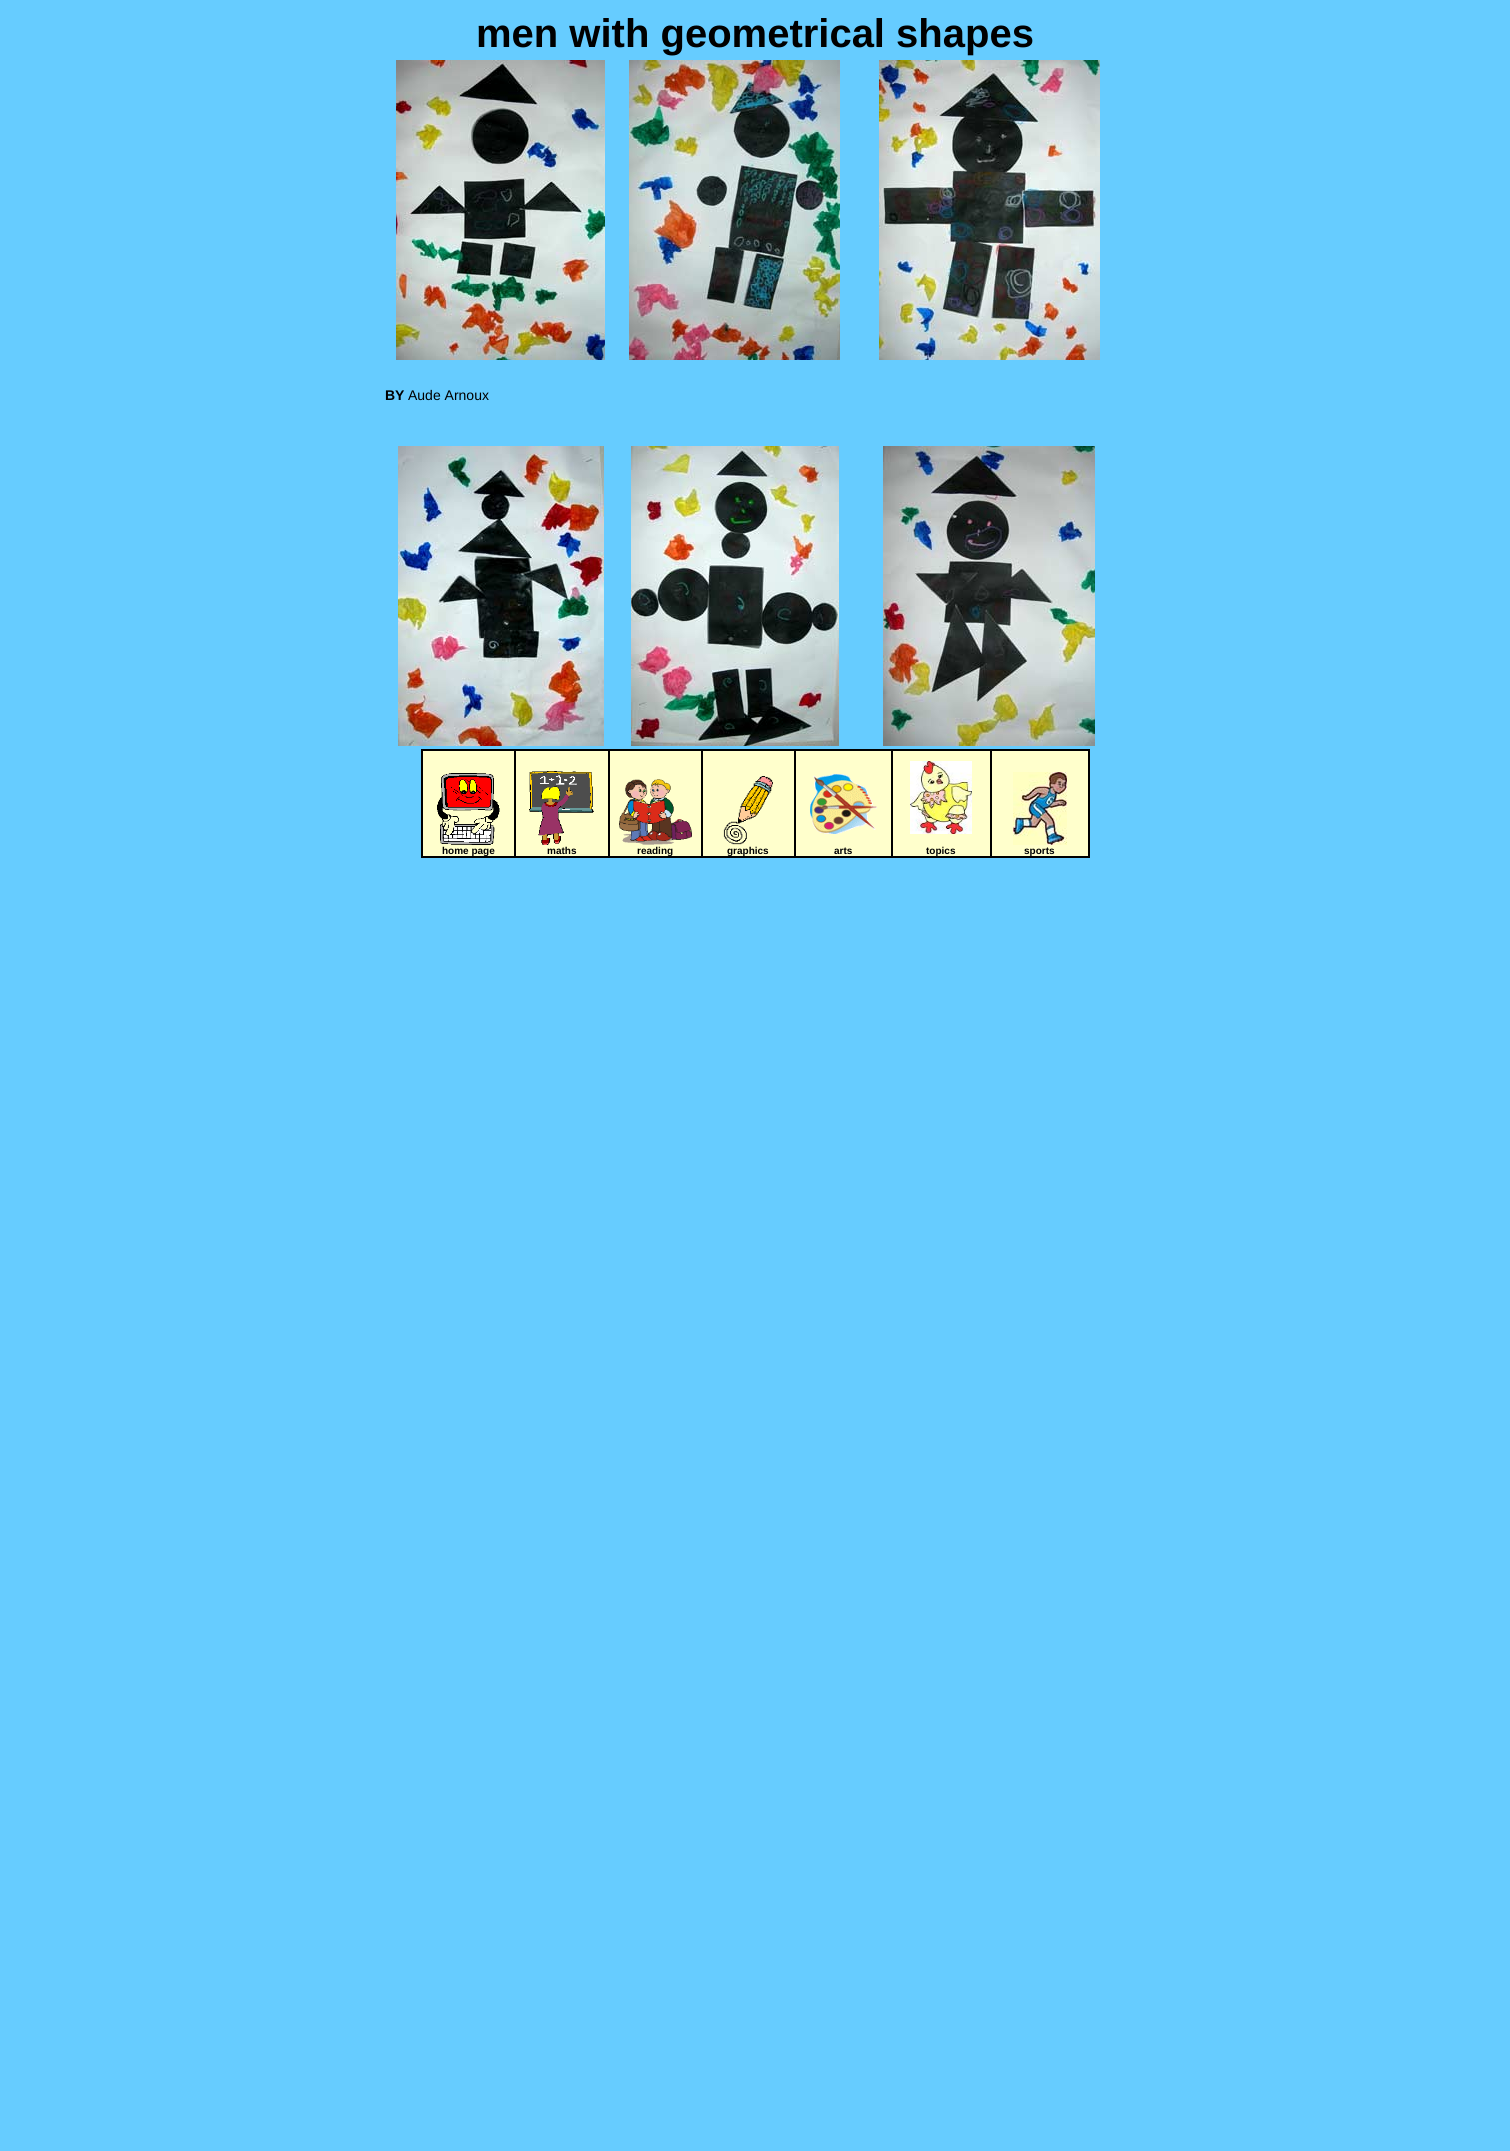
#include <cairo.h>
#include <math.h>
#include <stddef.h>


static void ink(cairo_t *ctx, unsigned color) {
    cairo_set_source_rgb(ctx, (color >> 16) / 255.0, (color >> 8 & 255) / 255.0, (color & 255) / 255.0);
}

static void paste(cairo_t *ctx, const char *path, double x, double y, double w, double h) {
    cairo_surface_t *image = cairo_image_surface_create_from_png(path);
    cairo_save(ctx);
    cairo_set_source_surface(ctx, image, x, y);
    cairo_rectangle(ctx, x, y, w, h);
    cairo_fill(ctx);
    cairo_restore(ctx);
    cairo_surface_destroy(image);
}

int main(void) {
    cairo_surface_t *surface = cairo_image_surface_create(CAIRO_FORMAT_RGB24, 1510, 2151);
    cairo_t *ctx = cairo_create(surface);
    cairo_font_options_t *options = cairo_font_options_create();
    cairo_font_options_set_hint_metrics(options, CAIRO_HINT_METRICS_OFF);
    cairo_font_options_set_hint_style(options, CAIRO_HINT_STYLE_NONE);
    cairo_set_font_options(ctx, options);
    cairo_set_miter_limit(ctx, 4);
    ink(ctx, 0x66CCFF);
    cairo_paint(ctx);
    cairo_select_font_face(ctx, "Liberation Sans", CAIRO_FONT_SLANT_NORMAL, CAIRO_FONT_WEIGHT_BOLD);
    cairo_set_font_size(ctx, 40);
    ink(ctx, 0x000000);
    cairo_move_to(ctx, 476, 47);
    cairo_show_text(ctx, "men with geometrical shapes");
    paste(ctx, "media/1.png", 396, 60, 209, 300);
    paste(ctx, "media/2.png", 629, 60, 211, 300);
    paste(ctx, "media/3.png", 879, 60, 221, 300);
    cairo_set_font_size(ctx, 14);
    cairo_move_to(ctx, 385, 400);
    cairo_show_text(ctx, "BY");
    cairo_select_font_face(ctx, "Liberation Sans", CAIRO_FONT_SLANT_NORMAL, CAIRO_FONT_WEIGHT_NORMAL);
    cairo_move_to(ctx, 408, 400);
    cairo_show_text(ctx, "Aude Arnoux");
    paste(ctx, "media/4.png", 398, 446, 206, 300);
    paste(ctx, "media/5.png", 631, 446, 208, 300);
    paste(ctx, "media/6.png", 883, 446, 212, 300);
    ink(ctx, 0xFFFFCC);
    cairo_rectangle(ctx, 423, 751, 665, 105);
    cairo_fill(ctx);
    cairo_rectangle(ctx, 421.5, 749.5, 668, 108);
    ink(ctx, 0x000000);
    cairo_set_line_width(ctx, 1);
    cairo_stroke(ctx);
    cairo_rectangle(ctx, 422.5, 750.5, 92, 106);
    cairo_stroke(ctx);
    paste(ctx, "media/7.png", 437, 773, 63, 72);
    cairo_select_font_face(ctx, "Liberation Sans", CAIRO_FONT_SLANT_NORMAL, CAIRO_FONT_WEIGHT_BOLD);
    cairo_set_font_size(ctx, 10);
    cairo_move_to(ctx, 442, 854);
    cairo_show_text(ctx, "home page");
    cairo_rectangle(ctx, 515.5, 750.5, 93, 106);
    cairo_stroke(ctx);
    paste(ctx, "media/8.png", 529, 771, 65, 74);
    cairo_move_to(ctx, 547, 854);
    cairo_show_text(ctx, "maths");
    cairo_rectangle(ctx, 609.5, 750.5, 92, 106);
    cairo_stroke(ctx);
    paste(ctx, "media/9.png", 619, 779, 73, 66);
    cairo_move_to(ctx, 637, 854);
    cairo_show_text(ctx, "reading");
    cairo_rectangle(ctx, 702.5, 750.5, 92, 106);
    cairo_stroke(ctx);
    paste(ctx, "media/10.png", 723, 776, 50, 69);
    cairo_move_to(ctx, 727, 854);
    cairo_show_text(ctx, "graphics");
    cairo_rectangle(ctx, 795.5, 750.5, 96, 106);
    cairo_stroke(ctx);
    paste(ctx, "media/11.png", 810, 774, 67, 60);
    cairo_move_to(ctx, 834, 854);
    cairo_show_text(ctx, "arts");
    cairo_rectangle(ctx, 892.5, 750.5, 98, 106);
    cairo_stroke(ctx);
    paste(ctx, "media/12.png", 910, 761, 62, 73);
    cairo_move_to(ctx, 926, 854);
    cairo_show_text(ctx, "topics");
    cairo_rectangle(ctx, 991.5, 750.5, 97, 106);
    cairo_stroke(ctx);
    paste(ctx, "media/13.png", 1013, 772, 54, 73);
    cairo_move_to(ctx, 1024, 854);
    cairo_show_text(ctx, "sports");
    cairo_surface_write_to_png(surface, "image.png");
    cairo_font_options_destroy(options);
    cairo_destroy(ctx);
    cairo_surface_destroy(surface);
    return 0;
}
